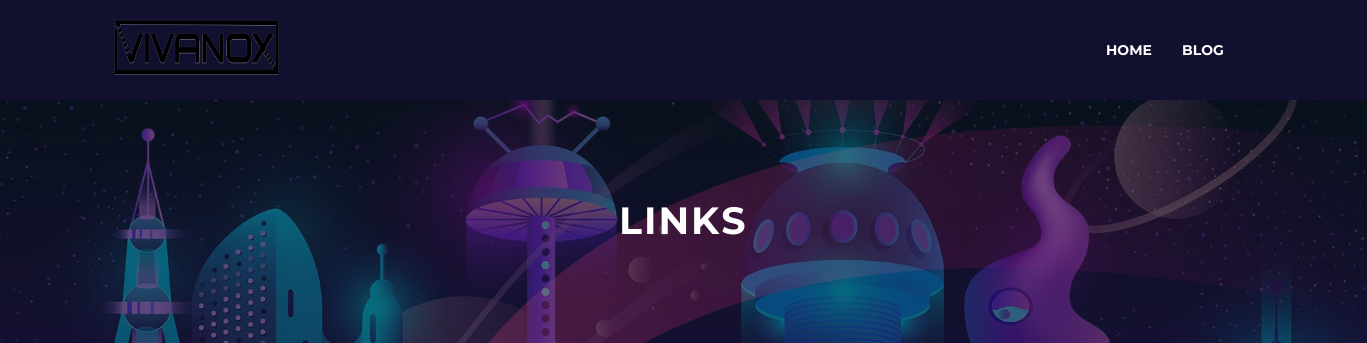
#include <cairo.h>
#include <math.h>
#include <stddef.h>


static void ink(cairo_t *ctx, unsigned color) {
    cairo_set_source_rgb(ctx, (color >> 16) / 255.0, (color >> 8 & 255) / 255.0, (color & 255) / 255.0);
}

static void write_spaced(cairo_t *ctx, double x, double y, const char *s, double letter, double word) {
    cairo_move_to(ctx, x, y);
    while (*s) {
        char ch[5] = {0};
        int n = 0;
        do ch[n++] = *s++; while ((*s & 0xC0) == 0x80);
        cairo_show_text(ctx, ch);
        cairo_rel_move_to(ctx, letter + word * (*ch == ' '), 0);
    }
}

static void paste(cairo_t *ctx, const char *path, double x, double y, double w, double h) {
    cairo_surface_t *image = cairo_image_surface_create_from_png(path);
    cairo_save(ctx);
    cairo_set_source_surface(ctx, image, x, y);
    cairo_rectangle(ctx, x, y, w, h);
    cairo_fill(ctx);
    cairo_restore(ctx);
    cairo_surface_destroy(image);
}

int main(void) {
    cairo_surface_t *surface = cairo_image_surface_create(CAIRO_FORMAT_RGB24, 1367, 343);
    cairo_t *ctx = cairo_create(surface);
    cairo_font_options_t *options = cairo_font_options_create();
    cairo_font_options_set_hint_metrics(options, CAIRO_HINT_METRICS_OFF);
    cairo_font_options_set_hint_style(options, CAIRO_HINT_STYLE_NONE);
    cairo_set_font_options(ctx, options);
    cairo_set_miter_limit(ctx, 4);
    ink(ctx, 0x12102F);
    cairo_paint(ctx);
    paste(ctx, "media/1.png", 114, 20, 165, 55);
    cairo_select_font_face(ctx, "Montserrat", CAIRO_FONT_SLANT_NORMAL, CAIRO_FONT_WEIGHT_BOLD);
    cairo_set_font_size(ctx, 14);
    ink(ctx, 0xFFFFFF);
    cairo_move_to(ctx, 1106, 55);
    cairo_show_text(ctx, "HOME");
    cairo_move_to(ctx, 1182, 55);
    cairo_show_text(ctx, "BLOG");
    paste(ctx, "media/2.png", 0, 100, 1367, 243);
    cairo_set_font_size(ctx, 38);
    write_spaced(ctx, 619, 234, "LINKS", 2, 0);
    cairo_surface_write_to_png(surface, "image.png");
    cairo_font_options_destroy(options);
    cairo_destroy(ctx);
    cairo_surface_destroy(surface);
    return 0;
}
